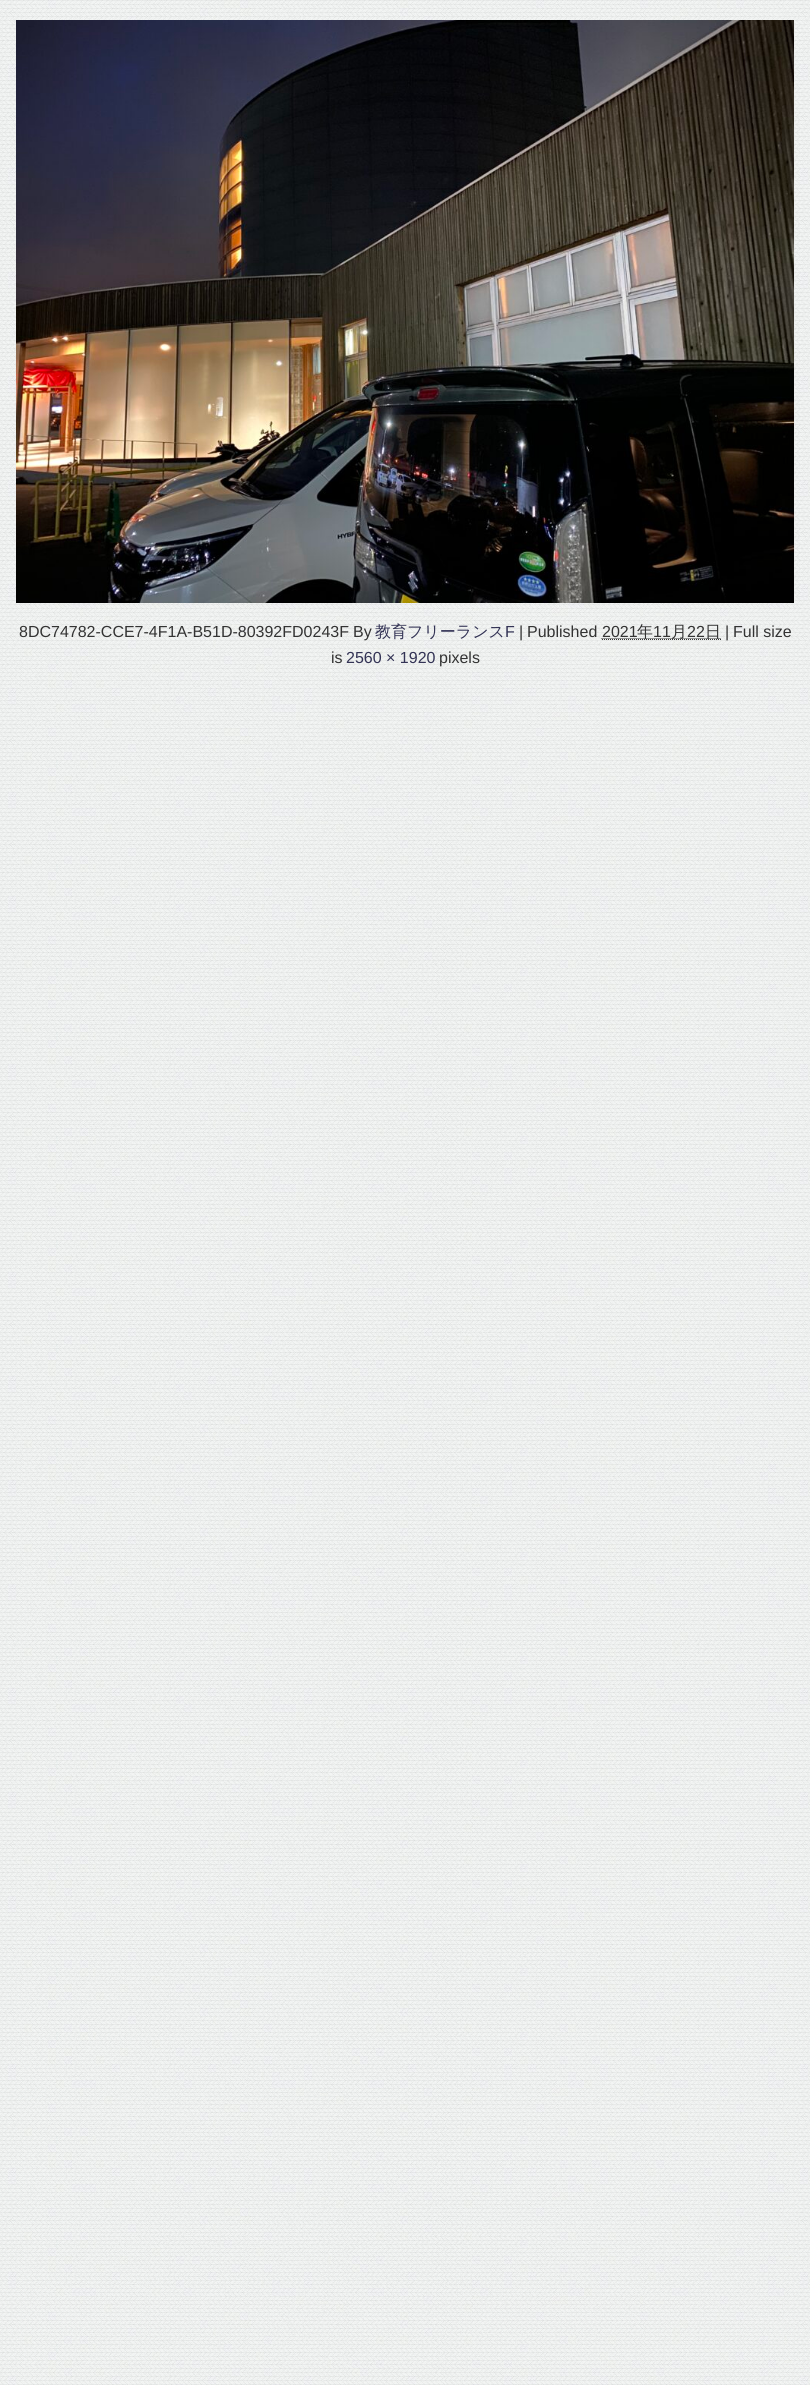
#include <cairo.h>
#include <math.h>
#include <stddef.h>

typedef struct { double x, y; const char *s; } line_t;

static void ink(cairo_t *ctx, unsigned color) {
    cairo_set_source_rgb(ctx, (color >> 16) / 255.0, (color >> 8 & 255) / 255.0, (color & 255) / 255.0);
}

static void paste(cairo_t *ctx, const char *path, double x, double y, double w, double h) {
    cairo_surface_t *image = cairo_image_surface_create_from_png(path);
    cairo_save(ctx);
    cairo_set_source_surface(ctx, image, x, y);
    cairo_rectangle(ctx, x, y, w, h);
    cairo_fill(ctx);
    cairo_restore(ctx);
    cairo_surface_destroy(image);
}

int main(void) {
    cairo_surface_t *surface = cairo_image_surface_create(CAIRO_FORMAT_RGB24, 810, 2385);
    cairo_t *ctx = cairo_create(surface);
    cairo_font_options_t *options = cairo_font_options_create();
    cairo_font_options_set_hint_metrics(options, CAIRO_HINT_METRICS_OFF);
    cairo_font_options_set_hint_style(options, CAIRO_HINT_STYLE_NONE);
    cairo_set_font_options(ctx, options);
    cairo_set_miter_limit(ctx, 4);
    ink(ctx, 0xFFFFFF);
    cairo_paint(ctx);
    paste(ctx, "media/1.png", 0, 0, 810, 2385);
    paste(ctx, "media/2.png", 16, 20, 778, 583);
    cairo_select_font_face(ctx, "Liberation Sans", CAIRO_FONT_SLANT_NORMAL, CAIRO_FONT_WEIGHT_NORMAL);
    cairo_set_font_size(ctx, 16);
    ink(ctx, 0x333333);
    cairo_move_to(ctx, 19, 637);
    cairo_show_text(ctx, "8DC74782-CCE7-4F1A-B51D-80392FD0243F");
    cairo_move_to(ctx, 353, 637);
    cairo_show_text(ctx, "By");
    cairo_select_font_face(ctx, "WenQuanYi Zen Hei Medium", CAIRO_FONT_SLANT_NORMAL, CAIRO_FONT_WEIGHT_NORMAL);
    ink(ctx, 0x333355);
    cairo_move_to(ctx, 375, 637);
    cairo_show_text(ctx, "教育フリーランス");
    cairo_select_font_face(ctx, "Liberation Sans", CAIRO_FONT_SLANT_NORMAL, CAIRO_FONT_WEIGHT_NORMAL);
    cairo_move_to(ctx, 505, 637);
    cairo_show_text(ctx, "F");
    ink(ctx, 0x333333);
    {
        static const line_t items[] = {
            {519, 637, "|"},
            {527, 637, "Published"},
            {602, 637, "2021"},
        };
        for (size_t i = 0; i < sizeof items / sizeof *items; i++) {
            cairo_move_to(ctx, items[i].x, items[i].y);
            cairo_show_text(ctx, items[i].s);
        }
    }
    cairo_new_path(ctx);
    cairo_move_to(ctx, 601.5, 638.5);
    cairo_line_to(ctx, 721, 638.5);
    cairo_set_line_width(ctx, 1);
    cairo_set_dash(ctx, (double[]){1, 1}, 2, 0);
    cairo_stroke(ctx);
    cairo_select_font_face(ctx, "WenQuanYi Zen Hei Medium", CAIRO_FONT_SLANT_NORMAL, CAIRO_FONT_WEIGHT_NORMAL);
    cairo_move_to(ctx, 637, 637);
    cairo_show_text(ctx, "年");
    cairo_select_font_face(ctx, "Liberation Sans", CAIRO_FONT_SLANT_NORMAL, CAIRO_FONT_WEIGHT_NORMAL);
    cairo_move_to(ctx, 653, 637);
    cairo_show_text(ctx, "11");
    cairo_new_path(ctx);
    cairo_move_to(ctx, 602, 639.5);
    cairo_line_to(ctx, 721, 639.5);
    cairo_stroke(ctx);
    cairo_select_font_face(ctx, "WenQuanYi Zen Hei Medium", CAIRO_FONT_SLANT_NORMAL, CAIRO_FONT_WEIGHT_NORMAL);
    cairo_move_to(ctx, 671, 637);
    cairo_show_text(ctx, "月");
    cairo_select_font_face(ctx, "Liberation Sans", CAIRO_FONT_SLANT_NORMAL, CAIRO_FONT_WEIGHT_NORMAL);
    cairo_move_to(ctx, 687, 637);
    cairo_show_text(ctx, "22");
    cairo_select_font_face(ctx, "WenQuanYi Zen Hei Medium", CAIRO_FONT_SLANT_NORMAL, CAIRO_FONT_WEIGHT_NORMAL);
    cairo_move_to(ctx, 705, 637);
    cairo_show_text(ctx, "日");
    cairo_select_font_face(ctx, "Liberation Sans", CAIRO_FONT_SLANT_NORMAL, CAIRO_FONT_WEIGHT_NORMAL);
    {
        static const line_t items[] = {
            {725, 637, "|"},
            {733, 637, "Full size"},
            {331, 663, "is"},
        };
        for (size_t i = 0; i < sizeof items / sizeof *items; i++) {
            cairo_move_to(ctx, items[i].x, items[i].y);
            cairo_show_text(ctx, items[i].s);
        }
    }
    ink(ctx, 0x333355);
    cairo_move_to(ctx, 346, 663);
    cairo_show_text(ctx, "2560 × 1920");
    ink(ctx, 0x333333);
    cairo_move_to(ctx, 439, 663);
    cairo_show_text(ctx, "pixels");
    cairo_surface_write_to_png(surface, "image.png");
    cairo_font_options_destroy(options);
    cairo_destroy(ctx);
    cairo_surface_destroy(surface);
    return 0;
}
